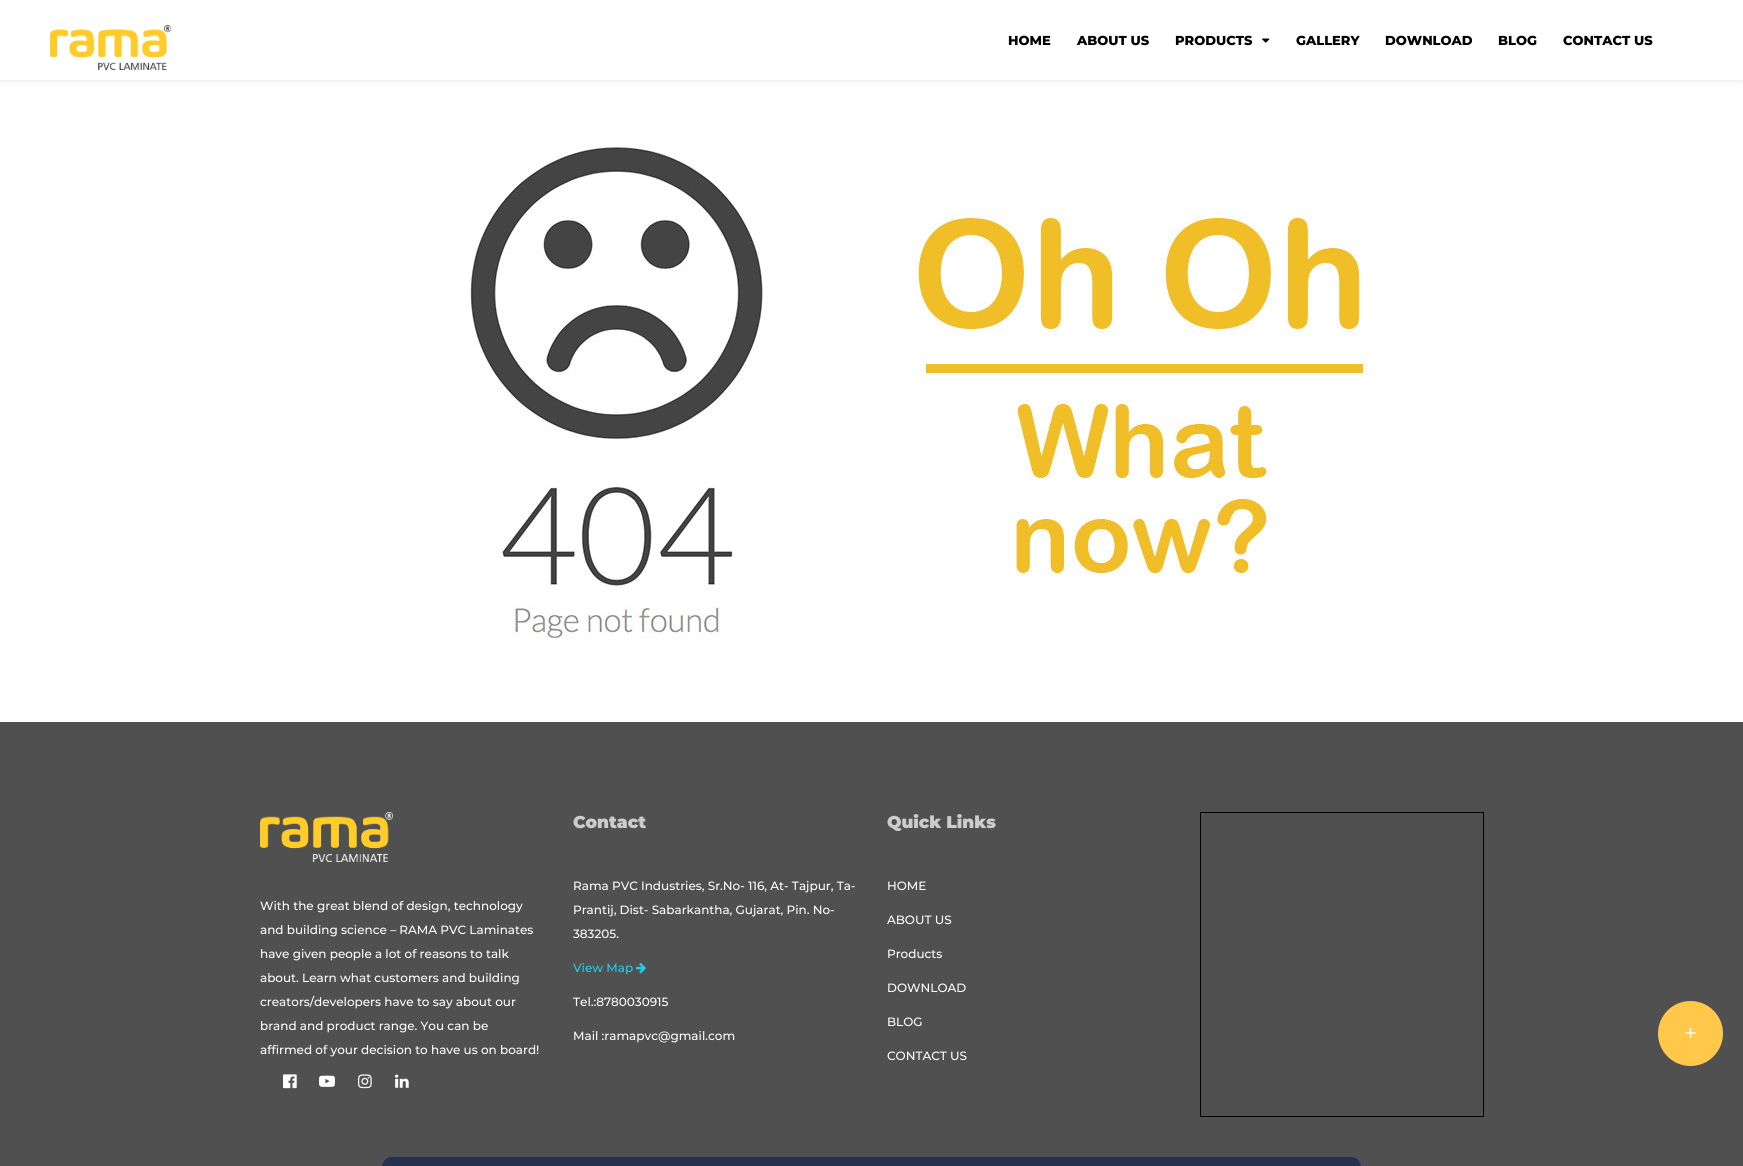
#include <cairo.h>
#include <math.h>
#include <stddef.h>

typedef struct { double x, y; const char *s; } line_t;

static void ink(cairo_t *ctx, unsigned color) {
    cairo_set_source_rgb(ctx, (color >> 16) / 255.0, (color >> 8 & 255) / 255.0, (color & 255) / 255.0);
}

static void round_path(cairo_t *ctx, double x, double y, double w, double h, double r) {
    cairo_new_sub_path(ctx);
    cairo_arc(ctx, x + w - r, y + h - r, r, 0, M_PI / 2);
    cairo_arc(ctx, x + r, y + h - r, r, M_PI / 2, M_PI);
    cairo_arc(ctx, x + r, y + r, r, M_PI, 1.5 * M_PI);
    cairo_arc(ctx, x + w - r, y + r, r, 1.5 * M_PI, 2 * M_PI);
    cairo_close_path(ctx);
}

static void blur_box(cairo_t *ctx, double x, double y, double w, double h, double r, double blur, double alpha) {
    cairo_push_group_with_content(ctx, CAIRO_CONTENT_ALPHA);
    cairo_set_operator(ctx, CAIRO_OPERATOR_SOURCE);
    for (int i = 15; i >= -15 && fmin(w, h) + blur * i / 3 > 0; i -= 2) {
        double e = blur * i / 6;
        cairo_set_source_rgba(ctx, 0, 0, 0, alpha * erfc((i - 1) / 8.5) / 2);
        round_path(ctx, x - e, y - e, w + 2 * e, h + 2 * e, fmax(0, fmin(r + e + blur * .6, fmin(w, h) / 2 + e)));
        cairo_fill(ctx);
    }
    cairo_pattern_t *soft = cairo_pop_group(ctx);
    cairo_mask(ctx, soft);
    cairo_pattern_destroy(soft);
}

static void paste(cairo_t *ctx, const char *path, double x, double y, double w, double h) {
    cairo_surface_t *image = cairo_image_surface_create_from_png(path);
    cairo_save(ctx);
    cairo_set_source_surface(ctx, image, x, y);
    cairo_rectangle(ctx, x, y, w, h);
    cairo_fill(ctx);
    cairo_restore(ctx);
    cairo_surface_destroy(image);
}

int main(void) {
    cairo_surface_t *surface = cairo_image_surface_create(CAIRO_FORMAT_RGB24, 1743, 1166);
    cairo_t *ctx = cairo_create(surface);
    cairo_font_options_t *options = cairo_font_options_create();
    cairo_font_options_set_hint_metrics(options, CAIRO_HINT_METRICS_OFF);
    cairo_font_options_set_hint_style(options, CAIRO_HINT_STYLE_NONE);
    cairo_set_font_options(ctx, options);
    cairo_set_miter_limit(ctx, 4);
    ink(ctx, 0xFFFFFF);
    cairo_paint(ctx);
    ink(ctx, 0x000000);
    blur_box(ctx, 0, 0, 1743, 80, 0, 4, 0.12);
    ink(ctx, 0xFFFFFF);
    cairo_rectangle(ctx, 0, 0, 1743, 80);
    cairo_fill(ctx);
    paste(ctx, "media/1.png", 50, 25, 121, 45);
    cairo_select_font_face(ctx, "Montserrat ExtraBold", CAIRO_FONT_SLANT_NORMAL, CAIRO_FONT_WEIGHT_NORMAL);
    cairo_set_font_size(ctx, 13);
    ink(ctx, 0x000000);
    {
        static const line_t items[] = {
            {1008, 45, "HOME"},
            {1077, 45, "ABOUT US"},
            {1175, 45, "PRODUCTS"},
        };
        for (size_t i = 0; i < sizeof items / sizeof *items; i++) {
            cairo_move_to(ctx, items[i].x, items[i].y);
            cairo_show_text(ctx, items[i].s);
        }
    }
    paste(ctx, "media/2.png", 1262, 38, 8, 5);
    {
        static const line_t items[] = {
            {1296, 45, "GALLERY"},
            {1385, 45, "DOWNLOAD"},
            {1498, 45, "BLOG"},
            {1563, 45, "CONTACT US"},
        };
        for (size_t i = 0; i < sizeof items / sizeof *items; i++) {
            cairo_move_to(ctx, items[i].x, items[i].y);
            cairo_show_text(ctx, items[i].s);
        }
    }
    paste(ctx, "media/3.png", 470, 144, 898, 495);
    ink(ctx, 0x505050);
    cairo_rectangle(ctx, 0, 722, 1743, 444);
    cairo_fill(ctx);
    paste(ctx, "media/4.png", 260, 812, 133, 50);
    cairo_select_font_face(ctx, "Montserrat Medium", CAIRO_FONT_SLANT_NORMAL, CAIRO_FONT_WEIGHT_NORMAL);
    cairo_set_font_size(ctx, 12);
    ink(ctx, 0xFFFFFF);
    {
        static const line_t items[] = {
            {260, 910, "With the great blend of design, technology"},
            {260, 934, "and building science – RAMA PVC Laminates"},
            {260, 958, "have given people a lot of reasons to talk"},
            {260, 982, "about. Learn what customers and building"},
            {260, 1006, "creators/developers have to say about our"},
            {260, 1030, "brand and product range. You can be"},
            {260, 1054, "affirmed of your decision to have us on board!"},
        };
        for (size_t i = 0; i < sizeof items / sizeof *items; i++) {
            cairo_move_to(ctx, items[i].x, items[i].y);
            cairo_show_text(ctx, items[i].s);
        }
    }
    paste(ctx, "media/5.png", 283, 1074, 14, 15);
    paste(ctx, "media/6.png", 319, 1075, 16, 12);
    paste(ctx, "media/7.png", 358, 1074, 14, 15);
    paste(ctx, "media/8.png", 395, 1074, 14, 14);
    cairo_select_font_face(ctx, "Montserrat Black", CAIRO_FONT_SLANT_NORMAL, CAIRO_FONT_WEIGHT_NORMAL);
    cairo_set_font_size(ctx, 17);
    ink(ctx, 0xCCCCCC);
    cairo_move_to(ctx, 573, 828);
    cairo_show_text(ctx, "Contact");
    cairo_select_font_face(ctx, "Montserrat Medium", CAIRO_FONT_SLANT_NORMAL, CAIRO_FONT_WEIGHT_NORMAL);
    cairo_set_font_size(ctx, 12);
    ink(ctx, 0xFFFFFF);
    {
        static const line_t items[] = {
            {573, 890, "Rama PVC Industries, Sr.No- 116, At- Tajpur, Ta-"},
            {573, 914, "Prantij, Dist- Sabarkantha, Gujarat, Pin. No-"},
            {573, 938, "383205."},
        };
        for (size_t i = 0; i < sizeof items / sizeof *items; i++) {
            cairo_move_to(ctx, items[i].x, items[i].y);
            cairo_show_text(ctx, items[i].s);
        }
    }
    ink(ctx, 0x1BD1EA);
    cairo_move_to(ctx, 573, 972);
    cairo_show_text(ctx, "View Map");
    paste(ctx, "media/9.png", 636, 963, 10, 11);
    ink(ctx, 0xFFFFFF);
    cairo_move_to(ctx, 573, 1006);
    cairo_show_text(ctx, "Tel.:8780030915");
    cairo_move_to(ctx, 573, 1040);
    cairo_show_text(ctx, "Mail :ramapvc@gmail.com");
    cairo_select_font_face(ctx, "Montserrat Black", CAIRO_FONT_SLANT_NORMAL, CAIRO_FONT_WEIGHT_NORMAL);
    cairo_set_font_size(ctx, 17);
    ink(ctx, 0xCCCCCC);
    cairo_move_to(ctx, 887, 828);
    cairo_show_text(ctx, "Quick Links");
    cairo_select_font_face(ctx, "Montserrat Medium", CAIRO_FONT_SLANT_NORMAL, CAIRO_FONT_WEIGHT_NORMAL);
    cairo_set_font_size(ctx, 12);
    ink(ctx, 0xFFFFFF);
    {
        static const line_t items[] = {
            {887, 890, "HOME"},
            {887, 924, "ABOUT US"},
            {887, 958, "Products"},
            {887, 992, "DOWNLOAD"},
            {887, 1026, "BLOG"},
            {887, 1060, "CONTACT US"},
        };
        for (size_t i = 0; i < sizeof items / sizeof *items; i++) {
            cairo_move_to(ctx, items[i].x, items[i].y);
            cairo_show_text(ctx, items[i].s);
        }
    }
    cairo_rectangle(ctx, 1200.5, 812.5, 283, 304);
    ink(ctx, 0x000000);
    cairo_set_line_width(ctx, 1);
    cairo_stroke(ctx);
    ink(ctx, 0x24324F);
    round_path(ctx, 382, 1157, 979, 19, 10);
    cairo_fill(ctx);
    ink(ctx, 0xFFC84B);
    cairo_arc(ctx, 1690.5, 1033.5, 32.5, 0, 2 * M_PI);
    cairo_fill(ctx);
    cairo_select_font_face(ctx, "Montserrat", CAIRO_FONT_SLANT_NORMAL, CAIRO_FONT_WEIGHT_NORMAL);
    cairo_set_font_size(ctx, 23);
    ink(ctx, 0xFFFFFF);
    cairo_move_to(ctx, 1684, 1041);
    cairo_show_text(ctx, "+");
    cairo_surface_write_to_png(surface, "image.png");
    cairo_font_options_destroy(options);
    cairo_destroy(ctx);
    cairo_surface_destroy(surface);
    return 0;
}
